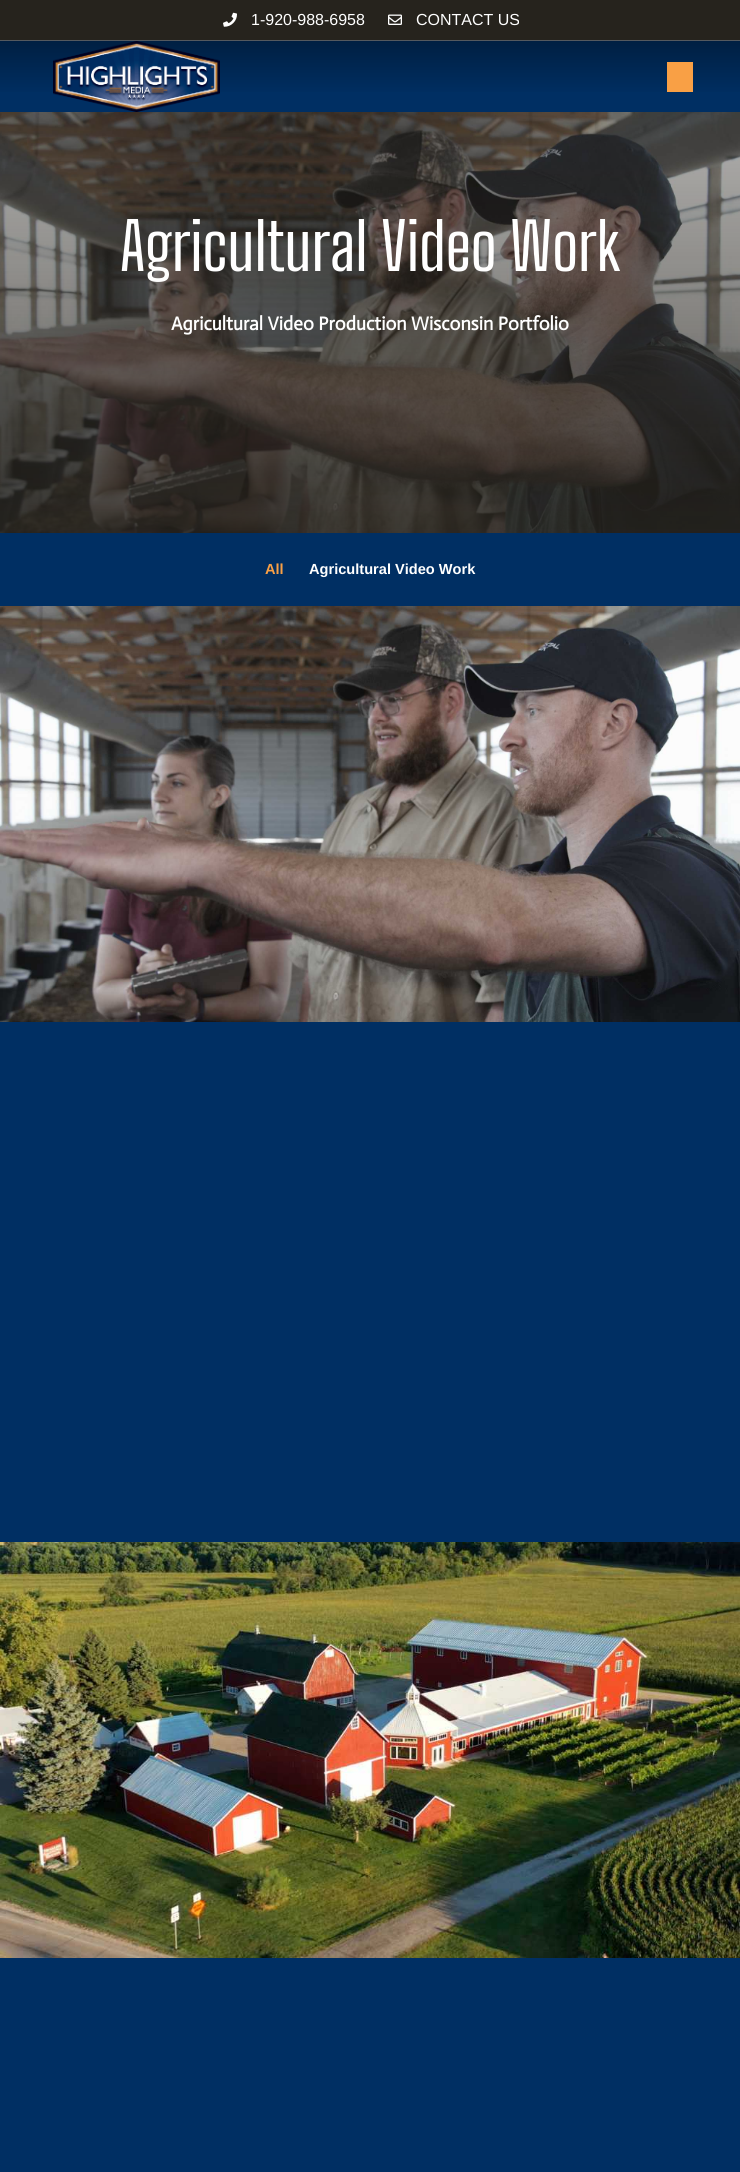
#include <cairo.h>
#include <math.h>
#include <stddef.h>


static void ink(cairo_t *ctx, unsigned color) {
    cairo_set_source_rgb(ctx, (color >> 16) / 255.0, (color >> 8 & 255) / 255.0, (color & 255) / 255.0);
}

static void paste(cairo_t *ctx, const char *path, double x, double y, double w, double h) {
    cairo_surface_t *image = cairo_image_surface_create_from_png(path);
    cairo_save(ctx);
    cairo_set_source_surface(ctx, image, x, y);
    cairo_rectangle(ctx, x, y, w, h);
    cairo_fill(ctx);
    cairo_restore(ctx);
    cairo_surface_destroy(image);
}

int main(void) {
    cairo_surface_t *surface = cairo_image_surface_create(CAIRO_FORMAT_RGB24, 740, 2172);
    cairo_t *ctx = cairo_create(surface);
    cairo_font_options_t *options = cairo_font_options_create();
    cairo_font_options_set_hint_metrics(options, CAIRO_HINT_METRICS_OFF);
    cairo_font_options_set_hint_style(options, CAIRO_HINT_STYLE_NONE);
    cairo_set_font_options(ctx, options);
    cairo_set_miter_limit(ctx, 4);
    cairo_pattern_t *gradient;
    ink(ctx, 0x002F63);
    cairo_paint(ctx);
    ink(ctx, 0x26231D);
    cairo_rectangle(ctx, 0, 0, 740, 40);
    cairo_fill(ctx);
    ink(ctx, 0x54595F);
    cairo_rectangle(ctx, 0, 40, 740, 1);
    cairo_fill(ctx);
    paste(ctx, "media/1.png", 223, 12, 14, 15);
    cairo_select_font_face(ctx, "Liberation Sans", CAIRO_FONT_SLANT_NORMAL, CAIRO_FONT_WEIGHT_NORMAL);
    cairo_set_font_size(ctx, 16);
    ink(ctx, 0xFFFFFF);
    cairo_move_to(ctx, 251, 25);
    cairo_show_text(ctx, "1-920-988-6958");
    paste(ctx, "media/2.png", 388, 14, 14, 11);
    cairo_move_to(ctx, 416, 25);
    cairo_show_text(ctx, "CONTACT US");
    gradient = cairo_pattern_create_linear(370, 41, 370, 112);
    cairo_pattern_add_color_stop_rgba(gradient, 0, 0, 0.122, 0.259, 1);
    cairo_pattern_add_color_stop_rgba(gradient, 0.77, 0, 0.184, 0.388, 1);
    cairo_set_source(ctx, gradient);
    cairo_pattern_destroy(gradient);
    cairo_rectangle(ctx, 0, 41, 740, 51);
    cairo_fill(ctx);
    paste(ctx, "media/3.png", 53, 41, 167, 71);
    ink(ctx, 0xF9A045);
    cairo_rectangle(ctx, 667, 62, 26, 30);
    cairo_fill(ctx);
    paste(ctx, "media/4.png", 0, 112, 740, 421);
    cairo_select_font_face(ctx, "Big Shoulders Text", CAIRO_FONT_SLANT_NORMAL, CAIRO_FONT_WEIGHT_NORMAL);
    cairo_set_font_size(ctx, 65);
    ink(ctx, 0xFFFFFF);
    cairo_move_to(ctx, 120, 271);
    cairo_show_text(ctx, "Agricultural Video Work");
    cairo_select_font_face(ctx, "Actor", CAIRO_FONT_SLANT_NORMAL, CAIRO_FONT_WEIGHT_BOLD);
    cairo_set_font_size(ctx, 19);
    cairo_move_to(ctx, 171, 330);
    cairo_show_text(ctx, "Agricultural Video Production Wisconsin Portfolio");
    cairo_select_font_face(ctx, "Liberation Sans", CAIRO_FONT_SLANT_NORMAL, CAIRO_FONT_WEIGHT_BOLD);
    cairo_set_font_size(ctx, 14.6);
    ink(ctx, 0xF9A045);
    cairo_move_to(ctx, 265, 574);
    cairo_show_text(ctx, "All");
    ink(ctx, 0xFFFFFF);
    cairo_move_to(ctx, 309, 574);
    cairo_show_text(ctx, "Agricultural Video Work");
    paste(ctx, "media/5.png", 0, 606, 740, 416);
    paste(ctx, "media/6.png", 0, 1542, 740, 416);
    cairo_surface_write_to_png(surface, "image.png");
    cairo_font_options_destroy(options);
    cairo_destroy(ctx);
    cairo_surface_destroy(surface);
    return 0;
}
